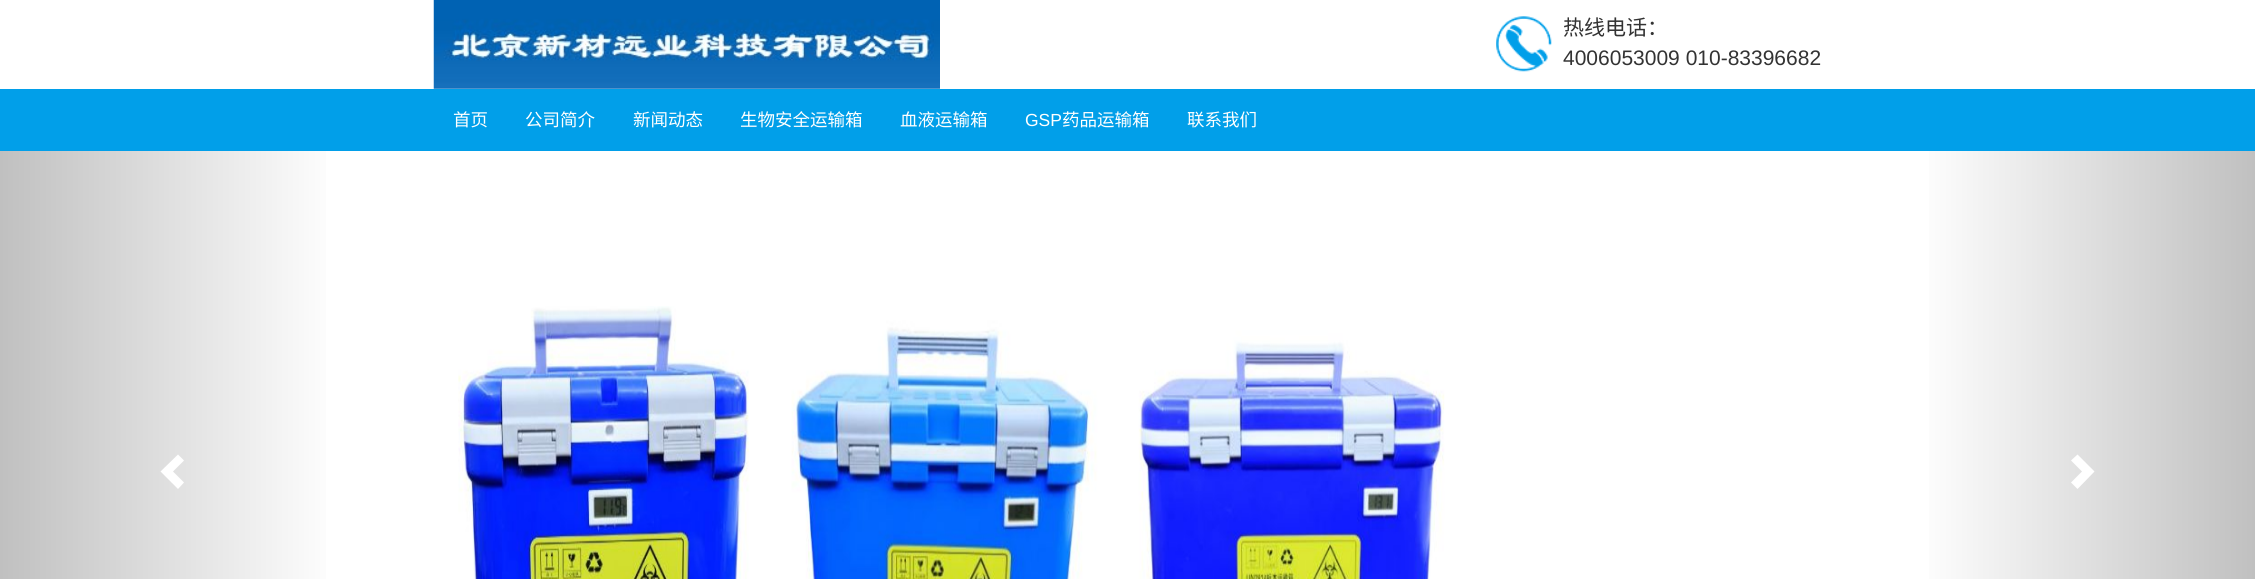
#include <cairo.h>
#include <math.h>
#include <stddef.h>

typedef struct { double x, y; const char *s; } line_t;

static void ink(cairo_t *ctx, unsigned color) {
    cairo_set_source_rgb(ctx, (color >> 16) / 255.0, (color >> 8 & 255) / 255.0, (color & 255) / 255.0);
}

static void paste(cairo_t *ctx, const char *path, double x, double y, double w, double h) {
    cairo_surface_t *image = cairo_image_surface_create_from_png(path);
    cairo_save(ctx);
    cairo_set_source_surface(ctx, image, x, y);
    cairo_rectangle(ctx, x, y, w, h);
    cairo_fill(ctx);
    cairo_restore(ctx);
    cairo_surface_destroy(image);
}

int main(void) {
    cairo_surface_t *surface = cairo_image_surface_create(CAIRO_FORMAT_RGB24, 2255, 579);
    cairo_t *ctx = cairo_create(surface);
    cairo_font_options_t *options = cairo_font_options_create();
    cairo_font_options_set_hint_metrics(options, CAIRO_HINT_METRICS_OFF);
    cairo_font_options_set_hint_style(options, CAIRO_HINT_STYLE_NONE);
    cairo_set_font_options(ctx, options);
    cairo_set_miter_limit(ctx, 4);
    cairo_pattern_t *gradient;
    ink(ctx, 0xFFFFFF);
    cairo_paint(ctx);
    paste(ctx, "media/1.png", 433, 0, 507, 89);
    paste(ctx, "media/2.png", 1496, 16, 56, 56);
    cairo_select_font_face(ctx, "Noto Sans CJK SC", CAIRO_FONT_SLANT_NORMAL, CAIRO_FONT_WEIGHT_NORMAL);
    cairo_set_font_size(ctx, 21);
    ink(ctx, 0x333333);
    cairo_move_to(ctx, 1563, 35);
    cairo_show_text(ctx, "热线电话：");
    cairo_select_font_face(ctx, "Liberation Sans", CAIRO_FONT_SLANT_NORMAL, CAIRO_FONT_WEIGHT_NORMAL);
    cairo_move_to(ctx, 1563, 65);
    cairo_show_text(ctx, "4006053009 010-83396682");
    ink(ctx, 0x019FE9);
    cairo_rectangle(ctx, 0, 89, 2255, 62);
    cairo_fill(ctx);
    cairo_select_font_face(ctx, "Noto Sans CJK SC", CAIRO_FONT_SLANT_NORMAL, CAIRO_FONT_WEIGHT_NORMAL);
    cairo_set_font_size(ctx, 17.5);
    ink(ctx, 0xFFFFFF);
    {
        static const line_t items[] = {
            {453, 126, "首页"},
            {525, 126, "公司简介"},
            {633, 126, "新闻动态"},
            {740, 126, "生物安全运输箱"},
            {900, 126, "血液运输箱"},
        };
        for (size_t i = 0; i < sizeof items / sizeof *items; i++) {
            cairo_move_to(ctx, items[i].x, items[i].y);
            cairo_show_text(ctx, items[i].s);
        }
    }
    cairo_select_font_face(ctx, "Liberation Sans", CAIRO_FONT_SLANT_NORMAL, CAIRO_FONT_WEIGHT_NORMAL);
    cairo_move_to(ctx, 1025, 126);
    cairo_show_text(ctx, "GSP");
    cairo_select_font_face(ctx, "Noto Sans CJK SC", CAIRO_FONT_SLANT_NORMAL, CAIRO_FONT_WEIGHT_NORMAL);
    cairo_move_to(ctx, 1062, 126);
    cairo_show_text(ctx, "药品运输箱");
    cairo_move_to(ctx, 1187, 126);
    cairo_show_text(ctx, "联系我们");
    gradient = cairo_pattern_create_linear(0, 464, 339, 464);
    cairo_pattern_add_color_stop_rgba(gradient, 0, 0.753, 0.753, 0.753, 1);
    cairo_pattern_add_color_stop_rgba(gradient, 1, 1, 1, 1, 1);
    cairo_set_source(ctx, gradient);
    cairo_pattern_destroy(gradient);
    cairo_rectangle(ctx, 0, 151, 326, 428);
    cairo_fill(ctx);
    ink(ctx, 0xFFFFFF);
    cairo_new_path(ctx);
    cairo_move_to(ctx, 184, 460.5);
    cairo_line_to(ctx, 173, 471.5);
    cairo_line_to(ctx, 184, 482.5);
    cairo_line_to(ctx, 178, 489);
    cairo_line_to(ctx, 160.5, 471.5);
    cairo_line_to(ctx, 178, 454.5);
    cairo_close_path(ctx);
    cairo_fill(ctx);
    paste(ctx, "media/3.png", 458, 306, 987, 273);
    gradient = cairo_pattern_create_linear(1916, 464, 2255, 464);
    cairo_pattern_add_color_stop_rgba(gradient, 0, 1, 1, 1, 1);
    cairo_pattern_add_color_stop_rgba(gradient, 1, 0.753, 0.753, 0.753, 1);
    cairo_set_source(ctx, gradient);
    cairo_pattern_destroy(gradient);
    cairo_rectangle(ctx, 1929, 151, 326, 428);
    cairo_fill(ctx);
    ink(ctx, 0xFFFFFF);
    cairo_new_path(ctx);
    cairo_move_to(ctx, 2094.5, 471.5);
    cairo_line_to(ctx, 2077.5, 489);
    cairo_line_to(ctx, 2071, 482.5);
    cairo_line_to(ctx, 2082, 471.5);
    cairo_line_to(ctx, 2071, 460.5);
    cairo_line_to(ctx, 2077.5, 454.5);
    cairo_close_path(ctx);
    cairo_fill(ctx);
    cairo_surface_write_to_png(surface, "image.png");
    cairo_font_options_destroy(options);
    cairo_destroy(ctx);
    cairo_surface_destroy(surface);
    return 0;
}
